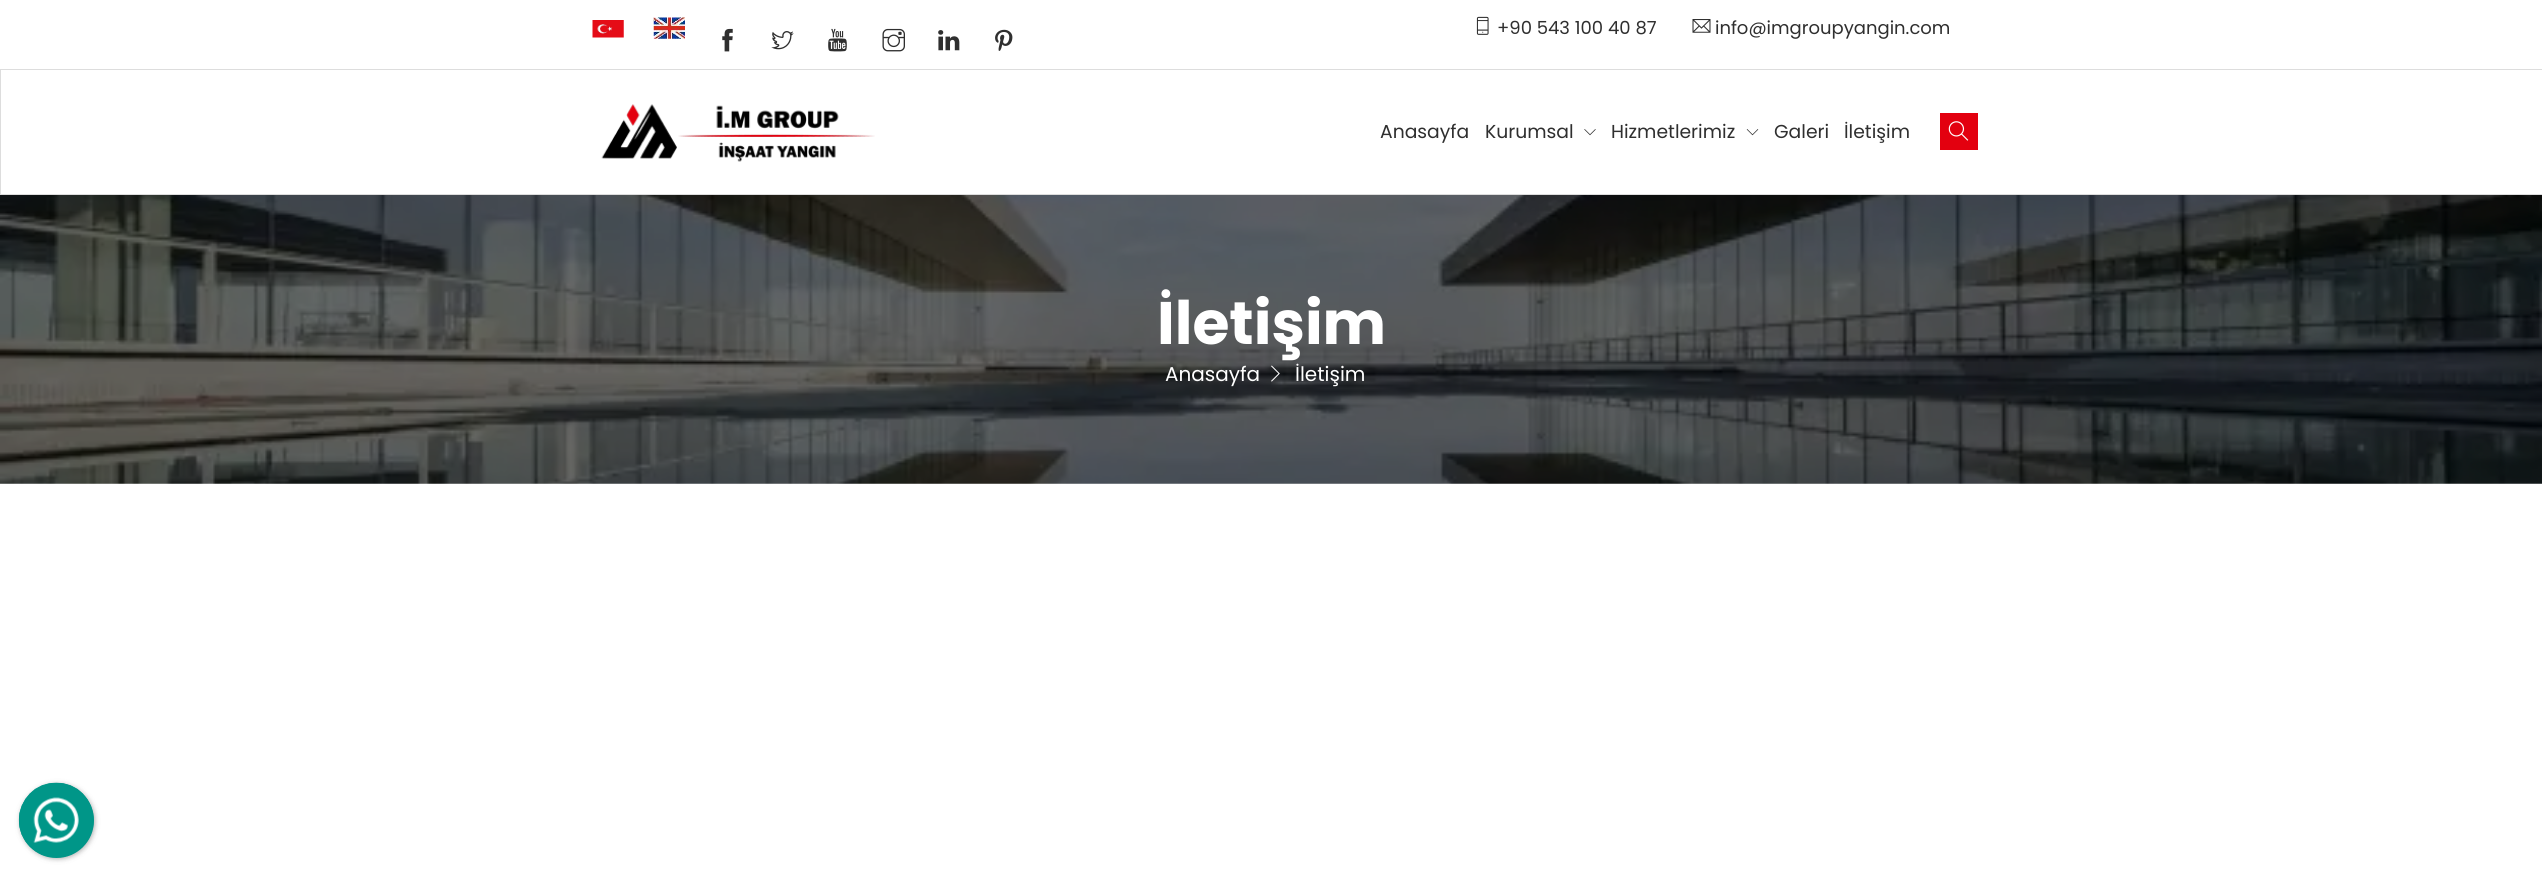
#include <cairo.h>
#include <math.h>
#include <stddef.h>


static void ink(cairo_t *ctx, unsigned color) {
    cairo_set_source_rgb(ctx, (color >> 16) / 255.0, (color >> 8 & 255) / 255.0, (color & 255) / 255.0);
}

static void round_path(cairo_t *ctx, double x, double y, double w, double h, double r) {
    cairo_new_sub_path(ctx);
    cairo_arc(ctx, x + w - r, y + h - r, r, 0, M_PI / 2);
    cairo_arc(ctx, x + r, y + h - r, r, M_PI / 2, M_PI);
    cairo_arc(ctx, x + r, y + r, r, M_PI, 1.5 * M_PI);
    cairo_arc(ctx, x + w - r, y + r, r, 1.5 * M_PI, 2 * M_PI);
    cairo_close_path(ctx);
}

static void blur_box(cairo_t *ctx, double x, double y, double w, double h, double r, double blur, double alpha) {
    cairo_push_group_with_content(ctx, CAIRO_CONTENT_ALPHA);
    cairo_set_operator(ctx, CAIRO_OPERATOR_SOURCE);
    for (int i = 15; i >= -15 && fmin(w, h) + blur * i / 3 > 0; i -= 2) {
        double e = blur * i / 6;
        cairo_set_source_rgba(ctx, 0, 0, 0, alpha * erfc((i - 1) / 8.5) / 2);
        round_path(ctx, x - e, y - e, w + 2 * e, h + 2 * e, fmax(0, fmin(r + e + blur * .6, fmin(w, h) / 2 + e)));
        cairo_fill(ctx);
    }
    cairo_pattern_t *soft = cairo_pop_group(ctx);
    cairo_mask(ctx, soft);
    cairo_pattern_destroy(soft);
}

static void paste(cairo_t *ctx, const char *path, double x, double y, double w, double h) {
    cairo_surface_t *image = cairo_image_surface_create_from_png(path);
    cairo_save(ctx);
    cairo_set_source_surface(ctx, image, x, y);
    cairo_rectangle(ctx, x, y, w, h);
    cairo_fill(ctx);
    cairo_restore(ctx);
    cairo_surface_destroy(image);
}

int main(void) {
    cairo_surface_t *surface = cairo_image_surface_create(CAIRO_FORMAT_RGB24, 2542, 876);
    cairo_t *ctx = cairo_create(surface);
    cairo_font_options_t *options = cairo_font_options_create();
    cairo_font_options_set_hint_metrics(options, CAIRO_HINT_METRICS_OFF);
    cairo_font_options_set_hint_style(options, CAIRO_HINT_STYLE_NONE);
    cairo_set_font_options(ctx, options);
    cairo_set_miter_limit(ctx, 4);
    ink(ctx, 0xFFFFFF);
    cairo_paint(ctx);
    paste(ctx, "media/1.png", 592, 20, 32, 18);
    paste(ctx, "media/2.png", 653, 17, 32, 22);
    paste(ctx, "media/3.png", 722, 28, 11, 24);
    paste(ctx, "media/4.png", 771, 31, 23, 19);
    paste(ctx, "media/5.png", 828, 28, 19, 24);
    paste(ctx, "media/6.png", 882, 28, 23, 24);
    paste(ctx, "media/7.png", 938, 30, 22, 21);
    paste(ctx, "media/8.png", 995, 29, 18, 22);
    paste(ctx, "media/9.png", 1476, 16, 13, 19);
    cairo_select_font_face(ctx, "Poppins", CAIRO_FONT_SLANT_NORMAL, CAIRO_FONT_WEIGHT_NORMAL);
    cairo_set_font_size(ctx, 18);
    ink(ctx, 0x2F2F2F);
    cairo_move_to(ctx, 1497, 34);
    cairo_show_text(ctx, "+90 543 100 40 87");
    paste(ctx, "media/10.png", 1692, 19, 19, 14);
    cairo_move_to(ctx, 1715, 34);
    cairo_show_text(ctx, "info@imgroupyangin.com");
    cairo_rectangle(ctx, 0.5, 69.5, 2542, 125);
    ink(ctx, 0xDDDDDD);
    cairo_set_line_width(ctx, 1);
    cairo_stroke(ctx);
    paste(ctx, "media/11.png", 601, 104, 274, 58);
    cairo_set_font_size(ctx, 18.75);
    ink(ctx, 0x2F2F2F);
    cairo_move_to(ctx, 1380, 138);
    cairo_show_text(ctx, "Anasayfa");
    cairo_move_to(ctx, 1485, 138);
    cairo_show_text(ctx, "Kurumsal");
    paste(ctx, "media/12.png", 1584, 129, 12, 7);
    cairo_move_to(ctx, 1611, 138);
    cairo_show_text(ctx, "Hizmetlerimiz");
    paste(ctx, "media/13.png", 1746, 129, 13, 7);
    cairo_move_to(ctx, 1774, 138);
    cairo_show_text(ctx, "Galeri");
    cairo_move_to(ctx, 1844, 138);
    cairo_show_text(ctx, "İletişim");
    ink(ctx, 0xE3000F);
    cairo_rectangle(ctx, 1940, 113, 38, 37);
    cairo_fill(ctx);
    paste(ctx, "media/14.png", 1948, 121, 21, 20);
    paste(ctx, "media/15.png", 0, 195, 2542, 289);
    cairo_select_font_face(ctx, "Poppins", CAIRO_FONT_SLANT_NORMAL, CAIRO_FONT_WEIGHT_BOLD);
    cairo_set_font_size(ctx, 60);
    ink(ctx, 0xFFFFFF);
    cairo_move_to(ctx, 1157, 344);
    cairo_show_text(ctx, "İletişim");
    cairo_select_font_face(ctx, "Poppins", CAIRO_FONT_SLANT_NORMAL, CAIRO_FONT_WEIGHT_NORMAL);
    cairo_set_font_size(ctx, 20);
    cairo_move_to(ctx, 1165, 381);
    cairo_show_text(ctx, "Anasayfa");
    paste(ctx, "media/16.png", 1271, 365, 9, 17);
    cairo_move_to(ctx, 1295, 381);
    cairo_show_text(ctx, "İletişim");
    ink(ctx, 0x3C3C3C);
    blur_box(ctx, 20, 784, 75, 75, 37.5, 2.5, 0.4);
    ink(ctx, 0x009688);
    cairo_arc(ctx, 56.5, 820.5, 37.5, 0, 2 * M_PI);
    cairo_fill(ctx);
    paste(ctx, "media/17.png", 18, 782, 76, 76);
    cairo_surface_write_to_png(surface, "image.png");
    cairo_font_options_destroy(options);
    cairo_destroy(ctx);
    cairo_surface_destroy(surface);
    return 0;
}
